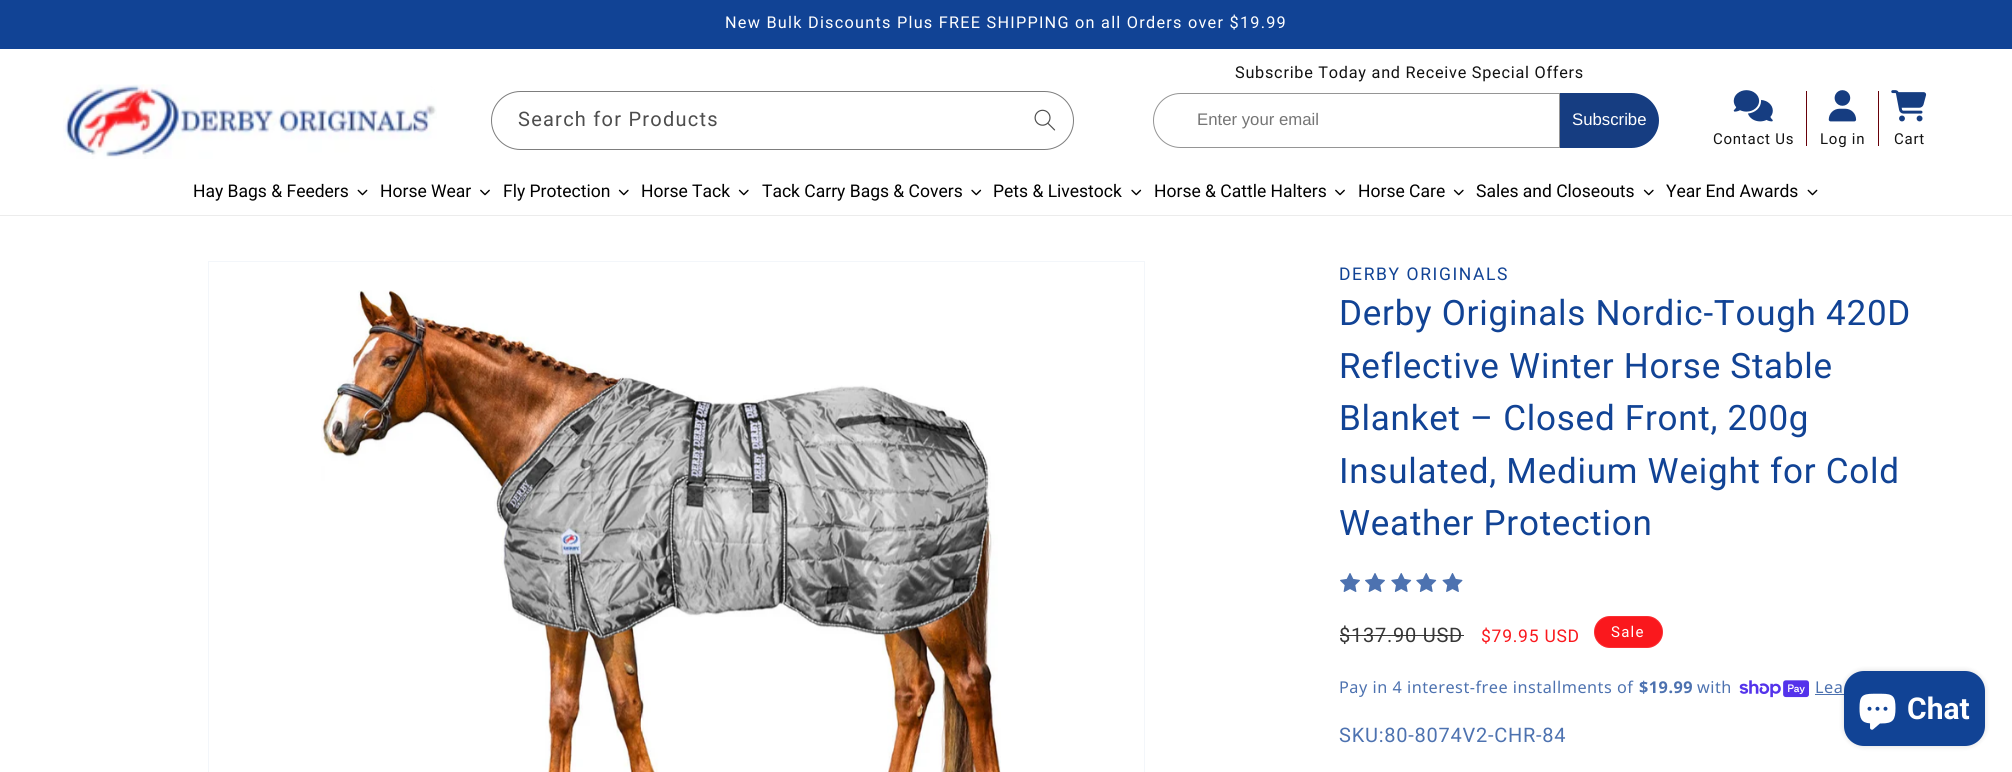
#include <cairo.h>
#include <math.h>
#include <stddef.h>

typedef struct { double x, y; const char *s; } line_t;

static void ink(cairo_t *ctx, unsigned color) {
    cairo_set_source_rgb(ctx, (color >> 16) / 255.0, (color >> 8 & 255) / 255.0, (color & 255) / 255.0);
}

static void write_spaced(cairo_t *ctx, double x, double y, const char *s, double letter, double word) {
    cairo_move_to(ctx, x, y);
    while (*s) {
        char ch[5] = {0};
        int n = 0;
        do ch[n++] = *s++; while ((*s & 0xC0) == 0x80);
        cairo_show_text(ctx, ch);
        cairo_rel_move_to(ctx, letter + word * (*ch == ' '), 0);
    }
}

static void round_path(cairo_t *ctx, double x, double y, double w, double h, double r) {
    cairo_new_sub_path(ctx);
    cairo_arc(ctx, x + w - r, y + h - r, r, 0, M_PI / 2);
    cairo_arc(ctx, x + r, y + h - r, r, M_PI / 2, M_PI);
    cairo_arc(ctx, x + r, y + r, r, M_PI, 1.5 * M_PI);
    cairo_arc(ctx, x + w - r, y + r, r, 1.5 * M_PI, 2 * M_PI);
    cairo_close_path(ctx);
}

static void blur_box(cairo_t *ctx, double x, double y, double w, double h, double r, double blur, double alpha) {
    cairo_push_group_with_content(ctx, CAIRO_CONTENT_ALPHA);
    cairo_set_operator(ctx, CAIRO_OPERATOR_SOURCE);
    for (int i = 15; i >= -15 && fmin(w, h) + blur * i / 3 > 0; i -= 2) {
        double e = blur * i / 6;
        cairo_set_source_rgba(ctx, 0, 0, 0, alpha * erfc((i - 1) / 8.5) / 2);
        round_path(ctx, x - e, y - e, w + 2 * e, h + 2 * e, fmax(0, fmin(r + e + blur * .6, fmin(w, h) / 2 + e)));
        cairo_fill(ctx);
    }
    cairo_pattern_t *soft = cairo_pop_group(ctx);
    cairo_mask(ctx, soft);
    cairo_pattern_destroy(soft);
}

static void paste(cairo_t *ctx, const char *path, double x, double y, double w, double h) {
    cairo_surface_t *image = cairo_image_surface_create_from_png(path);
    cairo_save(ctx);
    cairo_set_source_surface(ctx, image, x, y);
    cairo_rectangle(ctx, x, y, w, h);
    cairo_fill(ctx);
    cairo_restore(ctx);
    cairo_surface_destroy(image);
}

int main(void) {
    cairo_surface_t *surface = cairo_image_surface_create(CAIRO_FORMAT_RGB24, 2012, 772);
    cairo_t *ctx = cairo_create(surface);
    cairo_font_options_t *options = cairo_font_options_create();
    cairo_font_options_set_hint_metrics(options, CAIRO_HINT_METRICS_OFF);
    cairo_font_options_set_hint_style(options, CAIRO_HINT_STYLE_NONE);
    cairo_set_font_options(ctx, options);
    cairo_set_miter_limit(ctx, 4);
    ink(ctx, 0xFFFFFF);
    cairo_paint(ctx);
    ink(ctx, 0x114395);
    cairo_rectangle(ctx, 0, 0, 2012, 49);
    cairo_fill(ctx);
    cairo_select_font_face(ctx, "Roboto", CAIRO_FONT_SLANT_NORMAL, CAIRO_FONT_WEIGHT_NORMAL);
    cairo_set_font_size(ctx, 16.25);
    ink(ctx, 0xFFFFFF);
    write_spaced(ctx, 725, 28, "New Bulk Discounts Plus FREE SHIPPING on all Orders over $19.99", 1.25, 0);
    ink(ctx, 0xECECEC);
    cairo_rectangle(ctx, 0, 215, 2012, 1);
    cairo_fill(ctx);
    paste(ctx, "media/1.png", 63, 84, 374, 75);
    paste(ctx, "media/2.png", 1034, 109, 22, 22);
    round_path(ctx, 491.5, 91.5, 582, 58, 29);
    ink(ctx, 0x7D7D7D);
    cairo_set_line_width(ctx, 1);
    cairo_stroke(ctx);
    cairo_set_font_size(ctx, 20);
    ink(ctx, 0x4D4D4D);
    write_spaced(ctx, 518, 126, "Search for Products", 1.25, 0);
    cairo_set_font_size(ctx, 16.25);
    ink(ctx, 0x121212);
    write_spaced(ctx, 1235, 78, "Subscribe Today and Receive Special Offers", 0.75, 0);
    cairo_new_path(ctx);
    cairo_move_to(ctx, 1180.5, 93.5);
    cairo_line_to(ctx, 1559.5, 93.5);
    cairo_line_to(ctx, 1559.5, 147.5);
    cairo_line_to(ctx, 1180.5, 147.5);
    cairo_curve_to(ctx, 1165.5, 147.5, 1153.5, 135.5, 1153.5, 120.5);
    cairo_curve_to(ctx, 1153.5, 105.5, 1165.5, 93.5, 1180.5, 93.5);
    cairo_close_path(ctx);
    ink(ctx, 0x959595);
    cairo_stroke(ctx);
    cairo_select_font_face(ctx, "Liberation Sans", CAIRO_FONT_SLANT_NORMAL, CAIRO_FONT_WEIGHT_NORMAL);
    cairo_set_font_size(ctx, 16.75);
    ink(ctx, 0x757575);
    cairo_move_to(ctx, 1197, 125);
    cairo_show_text(ctx, "Enter your email");
    ink(ctx, 0x163D81);
    cairo_new_path(ctx);
    cairo_move_to(ctx, 1560, 93);
    cairo_line_to(ctx, 1631.5, 93);
    cairo_curve_to(ctx, 1646.5, 93, 1659, 105.5, 1659, 120.5);
    cairo_curve_to(ctx, 1659, 135.5, 1646.5, 148, 1631.5, 148);
    cairo_line_to(ctx, 1560, 148);
    cairo_close_path(ctx);
    cairo_fill(ctx);
    ink(ctx, 0xFFFFFF);
    cairo_move_to(ctx, 1572, 125);
    cairo_show_text(ctx, "Subscribe");
    ink(ctx, 0x680009);
    cairo_rectangle(ctx, 1806, 91, 1, 55);
    cairo_fill(ctx);
    paste(ctx, "media/3.png", 1733, 90, 40, 32);
    cairo_select_font_face(ctx, "Roboto", CAIRO_FONT_SLANT_NORMAL, CAIRO_FONT_WEIGHT_NORMAL);
    cairo_set_font_size(ctx, 15);
    ink(ctx, 0x121212);
    write_spaced(ctx, 1713, 144, "Contact Us", 0.75, 0);
    ink(ctx, 0x680009);
    cairo_rectangle(ctx, 1878, 91, 1, 55);
    cairo_fill(ctx);
    paste(ctx, "media/4.png", 1828, 90, 29, 32);
    ink(ctx, 0x121212);
    write_spaced(ctx, 1820, 144, "Log in", 0.75, 0);
    paste(ctx, "media/5.png", 1891, 90, 36, 32);
    write_spaced(ctx, 1894, 144, "Cart", 0.75, 0);
    cairo_set_font_size(ctx, 17.5);
    ink(ctx, 0x000000);
    cairo_move_to(ctx, 193, 197);
    cairo_show_text(ctx, "Hay Bags & Feeders");
    paste(ctx, "media/6.png", 357, 189, 11, 7);
    cairo_move_to(ctx, 380, 197);
    cairo_show_text(ctx, "Horse Wear");
    paste(ctx, "media/7.png", 480, 189, 10, 7);
    cairo_move_to(ctx, 503, 197);
    cairo_show_text(ctx, "Fly Protection");
    paste(ctx, "media/8.png", 618, 189, 11, 7);
    cairo_move_to(ctx, 641, 197);
    cairo_show_text(ctx, "Horse Tack");
    paste(ctx, "media/8.png", 738, 189, 11, 7);
    cairo_move_to(ctx, 762, 197);
    cairo_show_text(ctx, "Tack Carry Bags & Covers");
    paste(ctx, "media/9.png", 971, 189, 11, 7);
    cairo_move_to(ctx, 993, 197);
    cairo_show_text(ctx, "Pets & Livestock");
    paste(ctx, "media/9.png", 1131, 189, 11, 7);
    cairo_move_to(ctx, 1154, 197);
    cairo_show_text(ctx, "Horse & Cattle Halters");
    paste(ctx, "media/7.png", 1335, 189, 10, 7);
    cairo_move_to(ctx, 1358, 197);
    cairo_show_text(ctx, "Horse Care");
    paste(ctx, "media/8.png", 1453, 189, 11, 7);
    cairo_move_to(ctx, 1476, 197);
    cairo_show_text(ctx, "Sales and Closeouts");
    paste(ctx, "media/8.png", 1643, 189, 11, 7);
    cairo_move_to(ctx, 1666, 197);
    cairo_show_text(ctx, "Year End Awards");
    paste(ctx, "media/6.png", 1807, 189, 11, 7);
    cairo_rectangle(ctx, 208.5, 261.5, 936, 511);
    ink(ctx, 0xF3F6FA);
    cairo_stroke(ctx);
    paste(ctx, "media/10.png", 321, 290, 680, 482);
    ink(ctx, 0x114395);
    write_spaced(ctx, 1339, 280, "DERBY ORIGINALS", 1.6, 0);
    cairo_set_font_size(ctx, 35);
    {
        static const line_t items[] = {
            {1339, 325, "Derby Originals Nordic-Tough 420D"},
            {1339, 378, "Reflective Winter Horse Stable"},
            {1339, 430, "Blanket – Closed Front, 200g"},
            {1339, 483, "Insulated, Medium Weight for Cold"},
            {1339, 535, "Weather Protection"},
        };
        for (size_t i = 0; i < sizeof items / sizeof *items; i++) {
            write_spaced(ctx, items[i].x, items[i].y, items[i].s, 0.75, 0);
        }
    }
    paste(ctx, "media/11.png", 1340, 573, 20, 19);
    paste(ctx, "media/11.png", 1365, 573, 20, 19);
    paste(ctx, "media/12.png", 1391, 573, 21, 19);
    paste(ctx, "media/12.png", 1416, 573, 21, 19);
    paste(ctx, "media/13.png", 1442, 573, 21, 19);
    cairo_set_font_size(ctx, 20);
    ink(ctx, 0x373737);
    write_spaced(ctx, 1339, 642, "$137.90 USD", 0.75, 0);
    cairo_rectangle(ctx, 1340, 635, 124, 1);
    cairo_fill(ctx);
    cairo_set_font_size(ctx, 17.5);
    ink(ctx, 0xFA181D);
    write_spaced(ctx, 1481, 642, "$79.95 USD", 0.75, 0);
    round_path(ctx, 1594, 616, 69, 32, 16);
    cairo_fill(ctx);
    round_path(ctx, 1594.5, 616.5, 68, 31, 15.5);
    cairo_set_source_rgba(ctx, 1, 1, 1, 0.1);
    cairo_stroke(ctx);
    cairo_set_font_size(ctx, 15);
    ink(ctx, 0xFFFFFF);
    write_spaced(ctx, 1611, 637, "Sale", 1.25, 0);
    cairo_select_font_face(ctx, "Noto Sans", CAIRO_FONT_SLANT_NORMAL, CAIRO_FONT_WEIGHT_NORMAL);
    cairo_set_font_size(ctx, 16.25);
    ink(ctx, 0x4D72B0);
    write_spaced(ctx, 1339, 693, "Pay in 4 interest-free installments of", 0.5, 0);
    cairo_select_font_face(ctx, "Noto Sans", CAIRO_FONT_SLANT_NORMAL, CAIRO_FONT_WEIGHT_BOLD);
    write_spaced(ctx, 1639, 693, "$19.99", 0.5, 0);
    cairo_select_font_face(ctx, "Noto Sans", CAIRO_FONT_SLANT_NORMAL, CAIRO_FONT_WEIGHT_NORMAL);
    write_spaced(ctx, 1697, 693, "with", 0.5, 0);
    paste(ctx, "media/14.png", 1739, 680, 70, 18);
    write_spaced(ctx, 1815, 693, "Lea", 0.5, 0);
    cairo_rectangle(ctx, 1815, 694, 29, 1);
    cairo_fill(ctx);
    cairo_select_font_face(ctx, "Roboto", CAIRO_FONT_SLANT_NORMAL, CAIRO_FONT_WEIGHT_NORMAL);
    cairo_set_font_size(ctx, 20);
    write_spaced(ctx, 1339, 742, "SKU:80-8074V2-CHR-84", 0.75, 0);
    ink(ctx, 0x000000);
    blur_box(ctx, 1844, 671, 141, 75, 20, 3, 0.15);
    ink(ctx, 0x114395);
    round_path(ctx, 1844, 671, 141, 75, 20);
    cairo_fill(ctx);
    paste(ctx, "media/15.png", 1859, 693, 37, 37);
    cairo_select_font_face(ctx, "Roboto", CAIRO_FONT_SLANT_NORMAL, CAIRO_FONT_WEIGHT_BOLD);
    cairo_set_font_size(ctx, 30);
    ink(ctx, 0xFFFFFF);
    cairo_move_to(ctx, 1907, 719);
    cairo_show_text(ctx, "Chat");
    cairo_surface_write_to_png(surface, "image.png");
    cairo_font_options_destroy(options);
    cairo_destroy(ctx);
    cairo_surface_destroy(surface);
    return 0;
}
